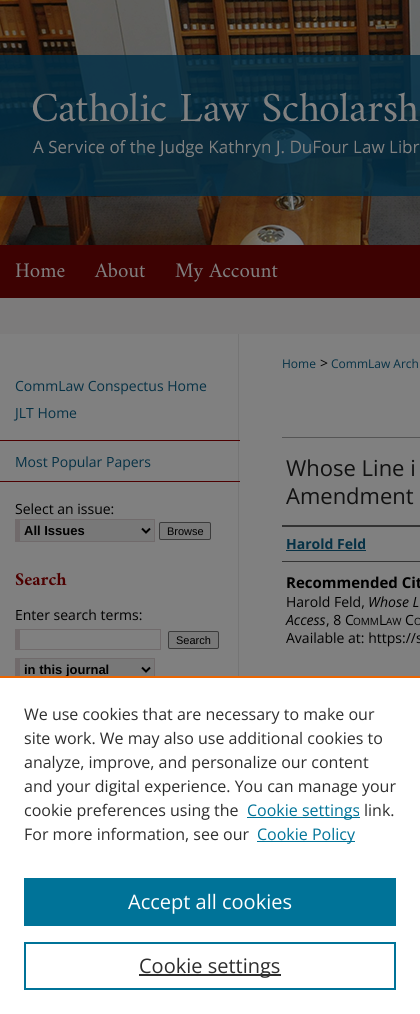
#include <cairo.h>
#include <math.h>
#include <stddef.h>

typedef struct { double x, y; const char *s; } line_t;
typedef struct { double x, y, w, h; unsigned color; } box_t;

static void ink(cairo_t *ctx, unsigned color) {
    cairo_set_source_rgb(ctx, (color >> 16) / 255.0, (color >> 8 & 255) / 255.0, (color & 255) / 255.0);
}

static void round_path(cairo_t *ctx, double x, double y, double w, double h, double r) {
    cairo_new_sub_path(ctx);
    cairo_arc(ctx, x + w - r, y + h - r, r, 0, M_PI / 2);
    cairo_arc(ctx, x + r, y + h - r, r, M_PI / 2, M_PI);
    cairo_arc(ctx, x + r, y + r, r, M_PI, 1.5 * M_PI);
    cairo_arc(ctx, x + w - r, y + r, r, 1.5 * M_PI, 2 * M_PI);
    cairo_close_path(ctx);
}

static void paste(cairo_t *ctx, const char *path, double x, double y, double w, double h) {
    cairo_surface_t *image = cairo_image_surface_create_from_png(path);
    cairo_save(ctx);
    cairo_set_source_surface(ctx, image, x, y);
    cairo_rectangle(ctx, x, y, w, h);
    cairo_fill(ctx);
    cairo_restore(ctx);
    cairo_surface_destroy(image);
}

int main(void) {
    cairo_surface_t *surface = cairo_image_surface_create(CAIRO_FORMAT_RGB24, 420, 1014);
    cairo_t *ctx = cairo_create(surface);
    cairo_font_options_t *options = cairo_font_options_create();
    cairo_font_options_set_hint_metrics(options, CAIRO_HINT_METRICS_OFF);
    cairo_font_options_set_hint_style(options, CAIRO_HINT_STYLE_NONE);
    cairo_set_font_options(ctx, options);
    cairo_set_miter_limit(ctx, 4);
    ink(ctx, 0x7C7B7B);
    cairo_paint(ctx);
    paste(ctx, "media/1.png", 0, 245, 420, 53);
    paste(ctx, "media/2.png", 0, 0, 420, 245);
    cairo_select_font_face(ctx, "Amiri", CAIRO_FONT_SLANT_NORMAL, CAIRO_FONT_WEIGHT_NORMAL);
    cairo_set_font_size(ctx, 21);
    ink(ctx, 0x808080);
    {
        static const line_t items[] = {
            {15, 277, "Home"},
            {95, 277, "About"},
            {175, 277, "My Account"},
        };
        for (size_t i = 0; i < sizeof items / sizeof *items; i++) {
            cairo_move_to(ctx, items[i].x, items[i].y);
            cairo_show_text(ctx, items[i].s);
        }
    }
    paste(ctx, "media/3.png", 0, 334, 420, 342);
    cairo_select_font_face(ctx, "Open Sans", CAIRO_FONT_SLANT_NORMAL, CAIRO_FONT_WEIGHT_NORMAL);
    cairo_set_font_size(ctx, 14);
    ink(ctx, 0x063145);
    cairo_move_to(ctx, 15, 391);
    cairo_show_text(ctx, "CommLaw Conspectus Home");
    cairo_move_to(ctx, 15, 418);
    cairo_show_text(ctx, "JLT Home");
    ink(ctx, 0x4D0001);
    cairo_rectangle(ctx, 0, 440, 240, 1);
    cairo_fill(ctx);
    cairo_rectangle(ctx, 0, 481, 240, 1);
    cairo_fill(ctx);
    ink(ctx, 0x063145);
    cairo_move_to(ctx, 15, 467);
    cairo_show_text(ctx, "Most Popular Papers");
    ink(ctx, 0x000000);
    cairo_move_to(ctx, 15, 514);
    cairo_show_text(ctx, "Select an issue:");
    {
        static const box_t items[] = {
            {20, 520, 134, 21, 0x787878},
            {15, 519, 140, 1, 0x706A6B},
            {154, 519, 1, 23, 0x706A6B},
            {15, 541, 140, 1, 0x706A6B},
            {15, 519, 5, 23, 0x706A6B},
        };
        for (size_t i = 0; i < sizeof items / sizeof *items; i++) {
            ink(ctx, items[i].color);
            cairo_rectangle(ctx, items[i].x, items[i].y, items[i].w, items[i].h);
            cairo_fill(ctx);
        }
    }
    cairo_new_path(ctx);
    cairo_move_to(ctx, 142, 528.5);
    cairo_line_to(ctx, 146, 532.5);
    cairo_line_to(ctx, 150, 528.5);
    ink(ctx, 0x000000);
    cairo_stroke(ctx);
    cairo_select_font_face(ctx, "Liberation Sans", CAIRO_FONT_SLANT_NORMAL, CAIRO_FONT_WEIGHT_BOLD);
    cairo_set_font_size(ctx, 13);
    cairo_move_to(ctx, 24, 535);
    cairo_show_text(ctx, "All Issues");
    ink(ctx, 0x787878);
    round_path(ctx, 159.5, 522.5, 51, 17, 1.5);
    cairo_fill_preserve(ctx);
    ink(ctx, 0x3B3B3B);
    cairo_set_line_width(ctx, 1);
    cairo_stroke(ctx);
    cairo_select_font_face(ctx, "Liberation Sans", CAIRO_FONT_SLANT_NORMAL, CAIRO_FONT_WEIGHT_NORMAL);
    cairo_set_font_size(ctx, 11);
    ink(ctx, 0x000000);
    cairo_move_to(ctx, 167, 535);
    cairo_show_text(ctx, "Browse");
    cairo_select_font_face(ctx, "Amiri", CAIRO_FONT_SLANT_NORMAL, CAIRO_FONT_WEIGHT_BOLD);
    cairo_set_font_size(ctx, 18);
    ink(ctx, 0x4D0000);
    cairo_move_to(ctx, 15, 585);
    cairo_show_text(ctx, "Search");
    cairo_select_font_face(ctx, "Open Sans", CAIRO_FONT_SLANT_NORMAL, CAIRO_FONT_WEIGHT_NORMAL);
    cairo_set_font_size(ctx, 14);
    ink(ctx, 0x000000);
    cairo_move_to(ctx, 15, 620);
    cairo_show_text(ctx, "Enter search terms:");
    {
        static const box_t items[] = {
            {15, 629, 146, 1, 0x706A6B},
            {160, 629, 1, 21, 0x706A6B},
            {15, 649, 146, 1, 0x706A6B},
            {15, 629, 5, 21, 0x706A6B},
        };
        for (size_t i = 0; i < sizeof items / sizeof *items; i++) {
            ink(ctx, items[i].color);
            cairo_rectangle(ctx, items[i].x, items[i].y, items[i].w, items[i].h);
            cairo_fill(ctx);
        }
    }
    ink(ctx, 0x787878);
    round_path(ctx, 168.5, 631.5, 50, 17, 1.5);
    cairo_fill_preserve(ctx);
    ink(ctx, 0x3B3B3B);
    cairo_stroke(ctx);
    cairo_select_font_face(ctx, "Liberation Sans", CAIRO_FONT_SLANT_NORMAL, CAIRO_FONT_WEIGHT_NORMAL);
    cairo_set_font_size(ctx, 11);
    ink(ctx, 0x000000);
    cairo_move_to(ctx, 176, 644);
    cairo_show_text(ctx, "Search");
    {
        static const box_t items[] = {
            {20, 659, 134, 17, 0x787878},
            {15, 658, 140, 1, 0x706A6B},
            {154, 658, 1, 23, 0x706A6B},
            {15, 658, 5, 23, 0x706A6B},
        };
        for (size_t i = 0; i < sizeof items / sizeof *items; i++) {
            ink(ctx, items[i].color);
            cairo_rectangle(ctx, items[i].x, items[i].y, items[i].w, items[i].h);
            cairo_fill(ctx);
        }
    }
    cairo_new_path(ctx);
    cairo_move_to(ctx, 142, 667.5);
    cairo_line_to(ctx, 146, 671.5);
    cairo_line_to(ctx, 150, 667.5);
    ink(ctx, 0x000000);
    cairo_set_line_width(ctx, 2);
    cairo_stroke(ctx);
    cairo_select_font_face(ctx, "Liberation Sans", CAIRO_FONT_SLANT_NORMAL, CAIRO_FONT_WEIGHT_BOLD);
    cairo_set_font_size(ctx, 13);
    cairo_move_to(ctx, 24, 674);
    cairo_show_text(ctx, "in this journal");
    cairo_select_font_face(ctx, "Open Sans", CAIRO_FONT_SLANT_NORMAL, CAIRO_FONT_WEIGHT_NORMAL);
    cairo_set_font_size(ctx, 12);
    ink(ctx, 0x063145);
    cairo_move_to(ctx, 282, 368);
    cairo_show_text(ctx, "Home");
    cairo_set_font_size(ctx, 14);
    ink(ctx, 0x000000);
    cairo_move_to(ctx, 320, 368);
    cairo_show_text(ctx, ">");
    cairo_set_font_size(ctx, 12);
    ink(ctx, 0x063145);
    cairo_move_to(ctx, 331, 368);
    cairo_show_text(ctx, "CommLaw Arch");
    ink(ctx, 0x555555);
    cairo_rectangle(ctx, 282, 437, 138, 1);
    cairo_fill(ctx);
    cairo_set_font_size(ctx, 22);
    ink(ctx, 0x111111);
    cairo_move_to(ctx, 286, 476);
    cairo_show_text(ctx, "Whose Line i");
    cairo_move_to(ctx, 286, 504);
    cairo_show_text(ctx, "Amendment");
    ink(ctx, 0x333333);
    cairo_rectangle(ctx, 282, 525, 138, 2);
    cairo_fill(ctx);
    cairo_rectangle(ctx, 282, 561, 138, 1);
    cairo_fill(ctx);
    cairo_select_font_face(ctx, "Open Sans", CAIRO_FONT_SLANT_NORMAL, CAIRO_FONT_WEIGHT_BOLD);
    cairo_set_font_size(ctx, 14);
    ink(ctx, 0x063145);
    cairo_move_to(ctx, 286, 549);
    cairo_show_text(ctx, "Harold Feld");
    cairo_rectangle(ctx, 286, 550, 80, 1);
    cairo_fill(ctx);
    cairo_set_font_size(ctx, 15);
    ink(ctx, 0x000000);
    cairo_move_to(ctx, 286, 588);
    cairo_show_text(ctx, "Recommended Cit");
    cairo_select_font_face(ctx, "Open Sans", CAIRO_FONT_SLANT_NORMAL, CAIRO_FONT_WEIGHT_NORMAL);
    cairo_set_font_size(ctx, 14);
    cairo_move_to(ctx, 286, 607);
    cairo_show_text(ctx, "Harold Feld,");
    cairo_select_font_face(ctx, "Open Sans", CAIRO_FONT_SLANT_ITALIC, CAIRO_FONT_WEIGHT_NORMAL);
    cairo_move_to(ctx, 368, 607);
    cairo_show_text(ctx, "Whose L");
    cairo_move_to(ctx, 286, 625);
    cairo_show_text(ctx, "Access");
    cairo_select_font_face(ctx, "Open Sans", CAIRO_FONT_SLANT_NORMAL, CAIRO_FONT_WEIGHT_NORMAL);
    cairo_move_to(ctx, 326, 625);
    cairo_show_text(ctx, ", 8 C");
    cairo_set_font_size(ctx, 10);
    cairo_move_to(ctx, 353, 625);
    cairo_show_text(ctx, "OMM");
    cairo_set_font_size(ctx, 14);
    cairo_move_to(ctx, 379, 625);
    cairo_show_text(ctx, "L");
    cairo_set_font_size(ctx, 10);
    cairo_move_to(ctx, 386, 625);
    cairo_show_text(ctx, "AW");
    cairo_set_font_size(ctx, 14);
    cairo_move_to(ctx, 405, 625);
    cairo_show_text(ctx, "C");
    cairo_set_font_size(ctx, 10);
    cairo_move_to(ctx, 414, 625);
    cairo_show_text(ctx, "O");
    cairo_set_font_size(ctx, 14);
    cairo_move_to(ctx, 286, 643);
    cairo_show_text(ctx, "Available at: https://s");
    ink(ctx, 0xFFFFFF);
    cairo_rectangle(ctx, 0, 678, 420, 336);
    cairo_fill(ctx);
    ink(ctx, 0xEB6500);
    cairo_rectangle(ctx, 0, 676, 420, 2);
    cairo_fill(ctx);
    cairo_set_font_size(ctx, 16);
    ink(ctx, 0x2E2E2E);
    {
        static const line_t items[] = {
            {24, 720, "We use cookies that are necessary to make our"},
            {24, 744, "site work. We may also use additional cookies to"},
            {24, 768, "analyze, improve, and personalize our content"},
            {24, 792, "and your digital experience. You can manage your"},
            {24, 816, "cookie preferences using the"},
        };
        for (size_t i = 0; i < sizeof items / sizeof *items; i++) {
            cairo_move_to(ctx, items[i].x, items[i].y);
            cairo_show_text(ctx, items[i].s);
        }
    }
    ink(ctx, 0x007398);
    cairo_rectangle(ctx, 247, 817, 113, 1);
    cairo_fill(ctx);
    cairo_move_to(ctx, 247, 816);
    cairo_show_text(ctx, "Cookie settings");
    ink(ctx, 0x2E2E2E);
    cairo_move_to(ctx, 364, 816);
    cairo_show_text(ctx, "link.");
    cairo_move_to(ctx, 24, 840);
    cairo_show_text(ctx, "For more information, see our");
    ink(ctx, 0x007398);
    cairo_rectangle(ctx, 257, 841, 98, 1);
    cairo_fill(ctx);
    cairo_move_to(ctx, 257, 840);
    cairo_show_text(ctx, "Cookie Policy");
    cairo_rectangle(ctx, 24, 878, 372, 48);
    cairo_fill(ctx);
    cairo_set_font_size(ctx, 20);
    ink(ctx, 0xFFFFFF);
    cairo_move_to(ctx, 128, 909);
    cairo_show_text(ctx, "Accept all cookies");
    cairo_rectangle(ctx, 25, 943, 370, 46);
    ink(ctx, 0x007398);
    cairo_stroke(ctx);
    ink(ctx, 0x2E2E2E);
    cairo_rectangle(ctx, 139, 974, 142, 2);
    cairo_fill(ctx);
    cairo_move_to(ctx, 139, 973);
    cairo_show_text(ctx, "Cookie settings");
    cairo_surface_write_to_png(surface, "image.png");
    cairo_font_options_destroy(options);
    cairo_destroy(ctx);
    cairo_surface_destroy(surface);
    return 0;
}
